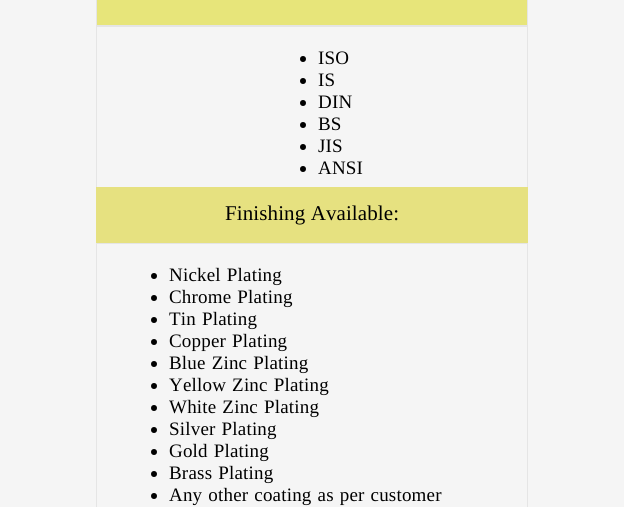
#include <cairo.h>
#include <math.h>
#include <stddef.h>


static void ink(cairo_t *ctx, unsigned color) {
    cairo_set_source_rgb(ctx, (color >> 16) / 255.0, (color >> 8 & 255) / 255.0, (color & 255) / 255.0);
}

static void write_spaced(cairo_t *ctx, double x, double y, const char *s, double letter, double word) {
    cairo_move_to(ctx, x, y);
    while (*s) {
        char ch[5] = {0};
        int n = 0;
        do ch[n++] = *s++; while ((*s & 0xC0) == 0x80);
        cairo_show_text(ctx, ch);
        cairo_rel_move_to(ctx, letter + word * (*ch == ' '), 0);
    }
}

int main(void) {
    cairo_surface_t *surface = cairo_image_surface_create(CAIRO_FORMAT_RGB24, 624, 507);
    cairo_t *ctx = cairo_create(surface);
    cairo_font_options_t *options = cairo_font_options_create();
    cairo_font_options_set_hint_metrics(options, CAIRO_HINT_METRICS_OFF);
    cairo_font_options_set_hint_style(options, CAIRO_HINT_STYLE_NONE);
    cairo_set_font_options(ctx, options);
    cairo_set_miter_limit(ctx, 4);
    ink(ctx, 0xF5F5F5);
    cairo_paint(ctx);
    ink(ctx, 0xE7E57A);
    cairo_rectangle(ctx, 96.5, -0.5, 431, 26);
    cairo_fill_preserve(ctx);
    ink(ctx, 0xE5E5E5);
    cairo_set_line_width(ctx, 1);
    cairo_stroke(ctx);
    cairo_rectangle(ctx, 96.5, 26.5, 431, 201);
    cairo_stroke(ctx);
    ink(ctx, 0x000000);
    cairo_arc(ctx, 303, 59, 3, 0, 2 * M_PI);
    cairo_fill(ctx);
    cairo_select_font_face(ctx, "Liberation Serif", CAIRO_FONT_SLANT_NORMAL, CAIRO_FONT_WEIGHT_NORMAL);
    cairo_set_font_size(ctx, 19);
    write_spaced(ctx, 318, 64, "ISO", 0.2, 0);
    cairo_new_path(ctx);
    cairo_arc(ctx, 303, 81, 3, 0, 2 * M_PI);
    cairo_fill(ctx);
    write_spaced(ctx, 318, 86, "IS", 0.2, 0);
    cairo_new_path(ctx);
    cairo_arc(ctx, 303, 103, 3, 0, 2 * M_PI);
    cairo_fill(ctx);
    write_spaced(ctx, 318, 108, "DIN", 0.2, 0);
    cairo_new_path(ctx);
    cairo_arc(ctx, 303, 125, 3, 0, 2 * M_PI);
    cairo_fill(ctx);
    write_spaced(ctx, 318, 130, "BS", 0.2, 0);
    cairo_new_path(ctx);
    cairo_arc(ctx, 303, 147, 3, 0, 2 * M_PI);
    cairo_fill(ctx);
    write_spaced(ctx, 318, 152, "JIS", 0.2, 0);
    cairo_new_path(ctx);
    cairo_arc(ctx, 303, 169, 3, 0, 2 * M_PI);
    cairo_fill(ctx);
    write_spaced(ctx, 318, 174, "ANSI", 0.2, 0);
    ink(ctx, 0xE6E180);
    cairo_rectangle(ctx, 96, 187, 432, 56);
    cairo_fill(ctx);
    cairo_set_font_size(ctx, 21);
    ink(ctx, 0x000000);
    write_spaced(ctx, 225, 220, "Finishing Available:", 0.1, 0);
    cairo_rectangle(ctx, 96.5, 243.5, 431, 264);
    ink(ctx, 0xE5E5E5);
    cairo_stroke(ctx);
    ink(ctx, 0x000000);
    cairo_arc(ctx, 154, 276, 3, 0, 2 * M_PI);
    cairo_fill(ctx);
    cairo_set_font_size(ctx, 19);
    write_spaced(ctx, 169, 281, "Nickel Plating", 0.2, 1);
    cairo_new_path(ctx);
    cairo_arc(ctx, 154, 298, 3, 0, 2 * M_PI);
    cairo_fill(ctx);
    write_spaced(ctx, 169, 303, "Chrome Plating", 0.2, 1);
    cairo_new_path(ctx);
    cairo_arc(ctx, 154, 320, 3, 0, 2 * M_PI);
    cairo_fill(ctx);
    write_spaced(ctx, 169, 325, "Tin Plating", 0.2, 1);
    cairo_new_path(ctx);
    cairo_arc(ctx, 154, 342, 3, 0, 2 * M_PI);
    cairo_fill(ctx);
    write_spaced(ctx, 169, 347, "Copper Plating", 0.2, 1);
    cairo_new_path(ctx);
    cairo_arc(ctx, 154, 364, 3, 0, 2 * M_PI);
    cairo_fill(ctx);
    write_spaced(ctx, 169, 369, "Blue Zinc Plating", 0.2, 1);
    cairo_new_path(ctx);
    cairo_arc(ctx, 154, 386, 3, 0, 2 * M_PI);
    cairo_fill(ctx);
    write_spaced(ctx, 169, 391, "Yellow Zinc Plating", 0.2, 1);
    cairo_new_path(ctx);
    cairo_arc(ctx, 154, 408, 3, 0, 2 * M_PI);
    cairo_fill(ctx);
    write_spaced(ctx, 169, 413, "White Zinc Plating", 0.2, 1);
    cairo_new_path(ctx);
    cairo_arc(ctx, 154, 430, 3, 0, 2 * M_PI);
    cairo_fill(ctx);
    write_spaced(ctx, 169, 435, "Silver Plating", 0.2, 1);
    cairo_new_path(ctx);
    cairo_arc(ctx, 154, 452, 3, 0, 2 * M_PI);
    cairo_fill(ctx);
    write_spaced(ctx, 169, 457, "Gold Plating", 0.2, 1);
    cairo_new_path(ctx);
    cairo_arc(ctx, 154, 474, 3, 0, 2 * M_PI);
    cairo_fill(ctx);
    write_spaced(ctx, 169, 479, "Brass Plating", 0.2, 1);
    cairo_new_path(ctx);
    cairo_arc(ctx, 154, 496, 3, 0, 2 * M_PI);
    cairo_fill(ctx);
    write_spaced(ctx, 169, 501, "Any other coating as per customer", 0.2, 1);
    cairo_surface_write_to_png(surface, "image.png");
    cairo_font_options_destroy(options);
    cairo_destroy(ctx);
    cairo_surface_destroy(surface);
    return 0;
}
